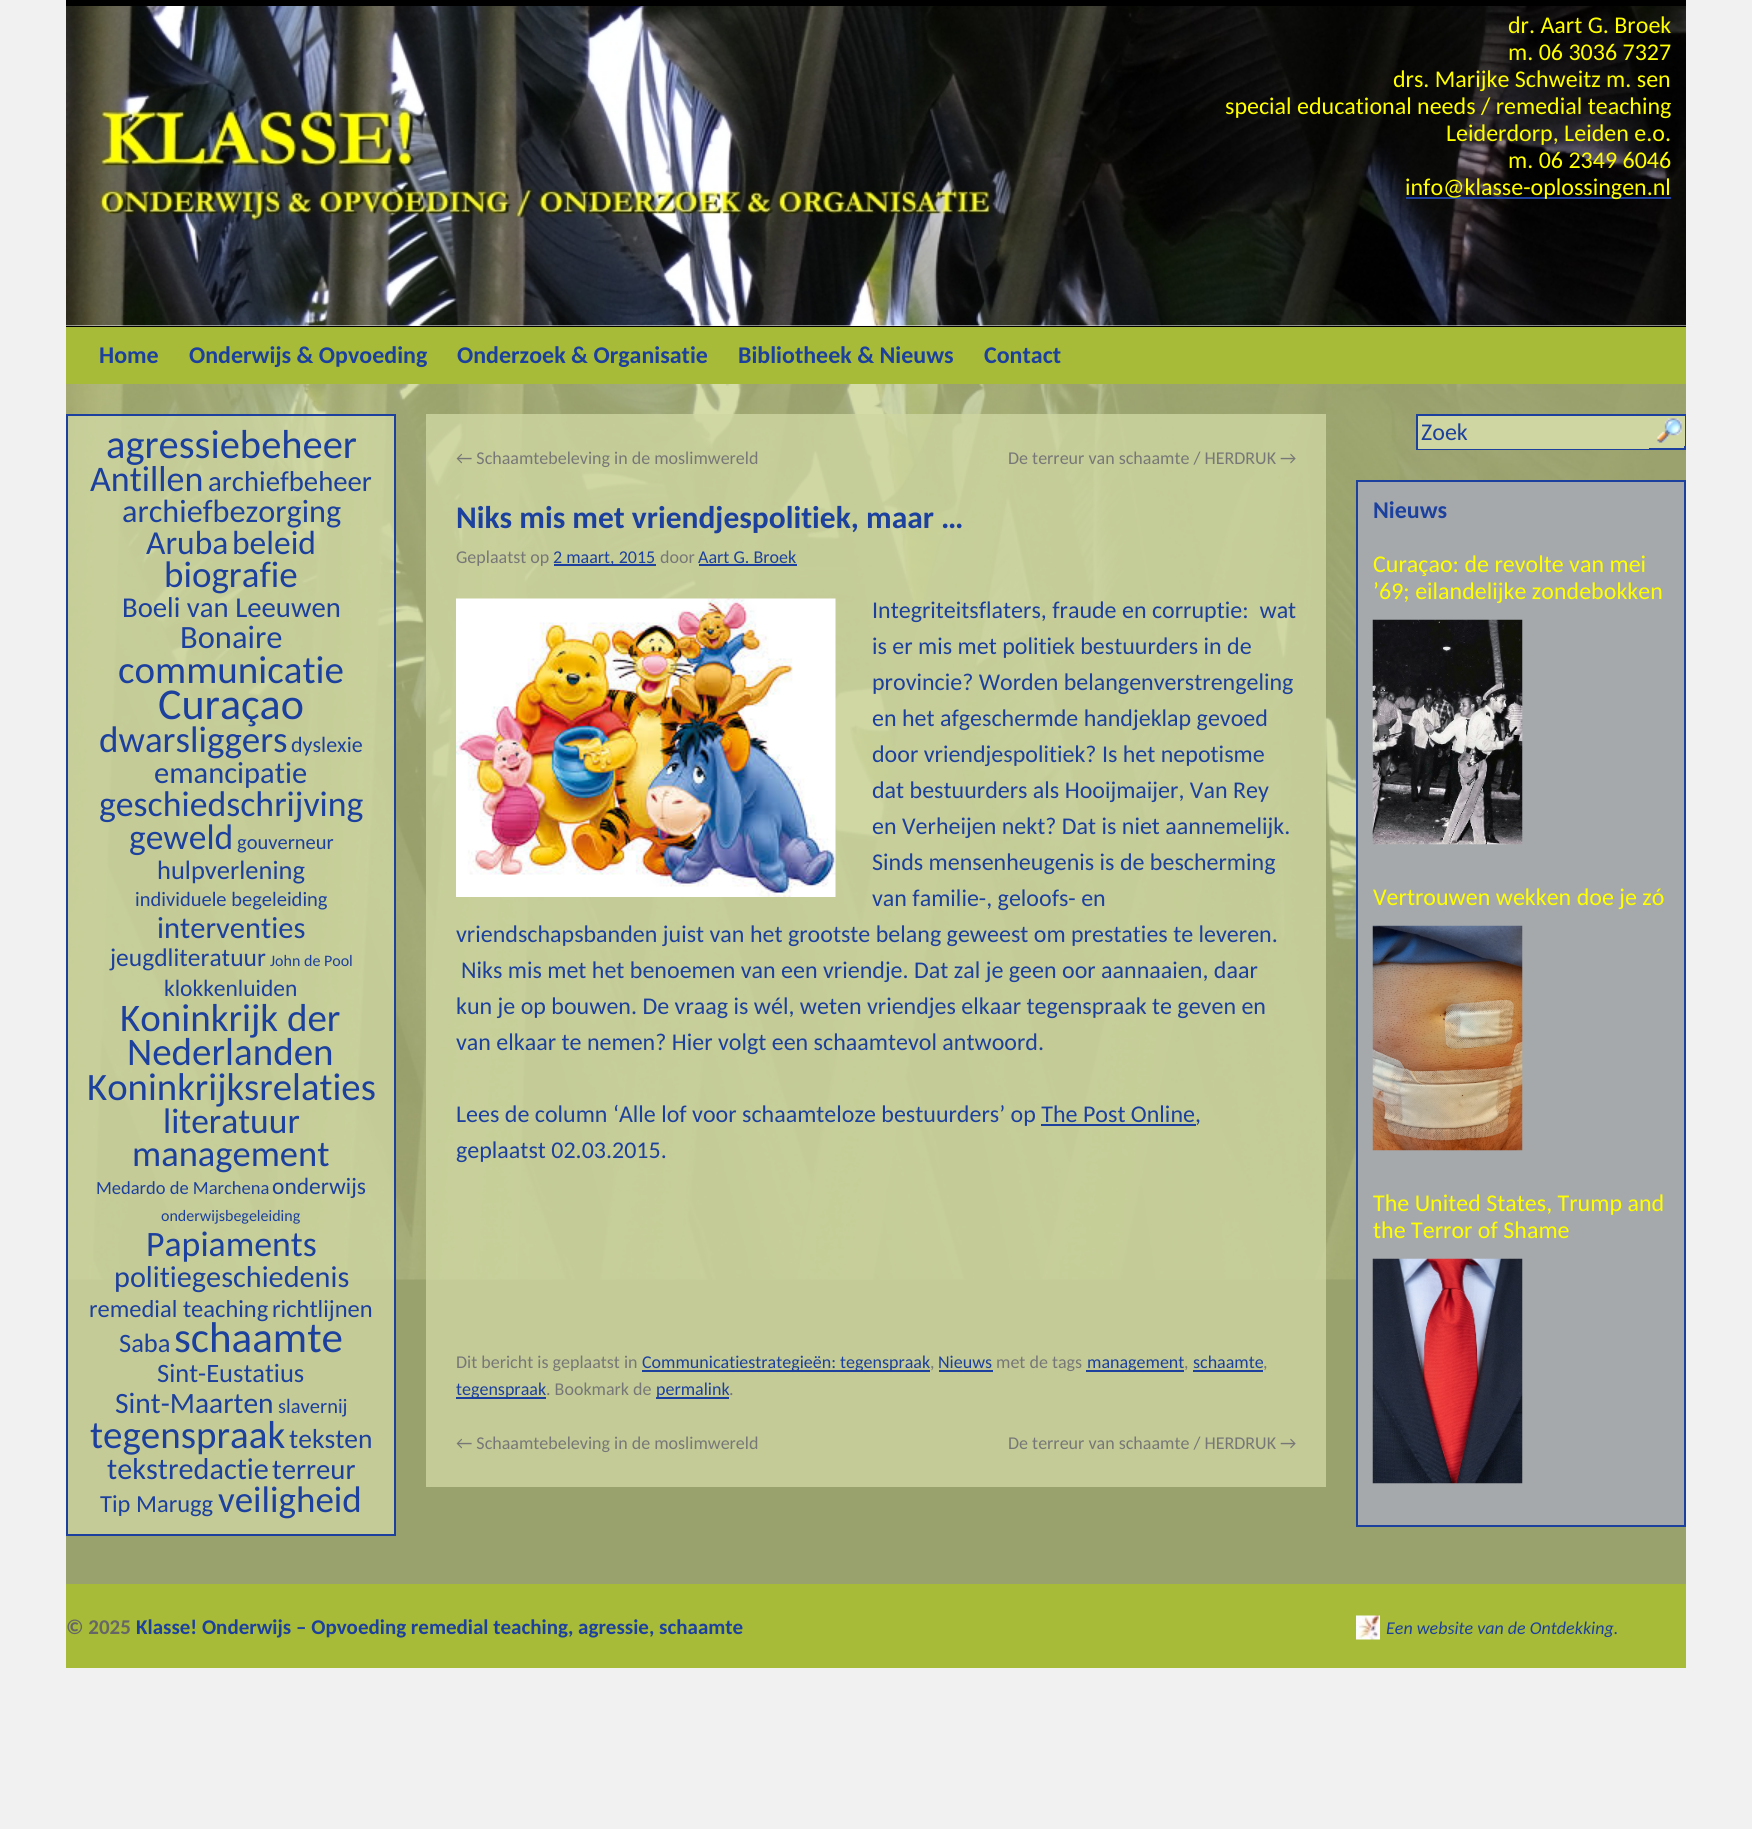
#include <cairo.h>
#include <math.h>
#include <stddef.h>

typedef struct { double x, y; const char *s; } line_t;
typedef struct { double x, y, w, h; unsigned color; } box_t;

static void ink(cairo_t *ctx, unsigned color) {
    cairo_set_source_rgb(ctx, (color >> 16) / 255.0, (color >> 8 & 255) / 255.0, (color & 255) / 255.0);
}

static void paste(cairo_t *ctx, const char *path, double x, double y, double w, double h) {
    cairo_surface_t *image = cairo_image_surface_create_from_png(path);
    cairo_save(ctx);
    cairo_set_source_surface(ctx, image, x, y);
    cairo_rectangle(ctx, x, y, w, h);
    cairo_fill(ctx);
    cairo_restore(ctx);
    cairo_surface_destroy(image);
}

int main(void) {
    cairo_surface_t *surface = cairo_image_surface_create(CAIRO_FORMAT_RGB24, 1752, 1829);
    cairo_t *ctx = cairo_create(surface);
    cairo_font_options_t *options = cairo_font_options_create();
    cairo_font_options_set_hint_metrics(options, CAIRO_HINT_METRICS_OFF);
    cairo_font_options_set_hint_style(options, CAIRO_HINT_STYLE_NONE);
    cairo_set_font_options(ctx, options);
    cairo_set_miter_limit(ctx, 4);
    ink(ctx, 0xF1F1F1);
    cairo_paint(ctx);
    ink(ctx, 0xFFFFFF);
    cairo_rectangle(ctx, 66, 325, 1620, 1);
    cairo_fill(ctx);
    paste(ctx, "media/1.png", 66, 6, 1620, 320);
    cairo_select_font_face(ctx, "Carlito", CAIRO_FONT_SLANT_NORMAL, CAIRO_FONT_WEIGHT_NORMAL);
    cairo_set_font_size(ctx, 24);
    ink(ctx, 0xFFFF00);
    {
        static const line_t items[] = {
            {1508, 33, "dr. Aart G. Broek"},
            {1508, 60, "m. 06 3036 7327"},
            {1393, 87, "drs. Marijke Schweitz m. sen"},
            {1225, 114, "special educational needs / remedial teaching"},
            {1446, 141, "Leiderdorp, Leiden e.o."},
            {1508, 168, "m. 06 2349 6046"},
        };
        for (size_t i = 0; i < sizeof items / sizeof *items; i++) {
            cairo_move_to(ctx, items[i].x, items[i].y);
            cairo_show_text(ctx, items[i].s);
        }
    }
    ink(ctx, 0x1C409D);
    cairo_rectangle(ctx, 1406, 197, 265, 2);
    cairo_fill(ctx);
    ink(ctx, 0xFFFF00);
    cairo_move_to(ctx, 1405, 195);
    cairo_show_text(ctx, "info@klasse-oplossingen.nl");
    {
        static const box_t items[] = {
            {66, 0, 1620, 6, 0x000000},
            {66, 326, 1620, 1, 0x000000},
            {66, 327, 1620, 57, 0xA7BB38},
        };
        for (size_t i = 0; i < sizeof items / sizeof *items; i++) {
            ink(ctx, items[i].color);
            cairo_rectangle(ctx, items[i].x, items[i].y, items[i].w, items[i].h);
            cairo_fill(ctx);
        }
    }
    cairo_select_font_face(ctx, "Carlito", CAIRO_FONT_SLANT_NORMAL, CAIRO_FONT_WEIGHT_BOLD);
    ink(ctx, 0x1C409D);
    {
        static const line_t items[] = {
            {99, 363, "Home"},
            {189, 363, "Onderwijs & Opvoeding"},
            {457, 363, "Onderzoek & Organisatie"},
            {738, 363, "Bibliotheek & Nieuws"},
            {984, 363, "Contact"},
        };
        for (size_t i = 0; i < sizeof items / sizeof *items; i++) {
            cairo_move_to(ctx, items[i].x, items[i].y);
            cairo_show_text(ctx, items[i].s);
        }
    }
    ink(ctx, 0x99A16D);
    cairo_rectangle(ctx, 66, 1279, 1620, 305);
    cairo_fill(ctx);
    paste(ctx, "media/2.png", 66, 384, 1620, 896);
    cairo_set_source_rgba(ctx, 0.808, 0.835, 0.631, 0.8);
    cairo_rectangle(ctx, 67, 415, 328, 1120);
    cairo_fill_preserve(ctx);
    ink(ctx, 0x1C409D);
    cairo_stroke(ctx);
    cairo_select_font_face(ctx, "Carlito", CAIRO_FONT_SLANT_NORMAL, CAIRO_FONT_WEIGHT_NORMAL);
    cairo_set_font_size(ctx, 40.5);
    cairo_move_to(ctx, 106, 458);
    cairo_show_text(ctx, "agressiebeheer");
    cairo_set_font_size(ctx, 36);
    cairo_move_to(ctx, 90, 491);
    cairo_show_text(ctx, "Antillen");
    cairo_set_font_size(ctx, 28.75);
    cairo_move_to(ctx, 208, 491);
    cairo_show_text(ctx, "archiefbeheer");
    cairo_set_font_size(ctx, 32.25);
    cairo_move_to(ctx, 122, 522);
    cairo_show_text(ctx, "archiefbezorging");
    cairo_set_font_size(ctx, 33.5);
    cairo_move_to(ctx, 146, 554);
    cairo_show_text(ctx, "Aruba");
    cairo_move_to(ctx, 232, 554);
    cairo_show_text(ctx, "beleid");
    cairo_set_font_size(ctx, 37);
    cairo_move_to(ctx, 164, 587);
    cairo_show_text(ctx, "biografie");
    cairo_set_font_size(ctx, 28.75);
    cairo_move_to(ctx, 122, 617);
    cairo_show_text(ctx, "Boeli van Leeuwen");
    cairo_set_font_size(ctx, 32.5);
    cairo_move_to(ctx, 180, 648);
    cairo_show_text(ctx, "Bonaire");
    cairo_set_font_size(ctx, 39);
    cairo_move_to(ctx, 118, 683);
    cairo_show_text(ctx, "communicatie");
    cairo_set_font_size(ctx, 44);
    cairo_move_to(ctx, 158, 719);
    cairo_show_text(ctx, "Curaçao");
    cairo_set_font_size(ctx, 37);
    cairo_move_to(ctx, 99, 752);
    cairo_show_text(ctx, "dwarsliggers");
    cairo_set_font_size(ctx, 22);
    cairo_move_to(ctx, 291, 752);
    cairo_show_text(ctx, "dyslexie");
    cairo_set_font_size(ctx, 30.5);
    cairo_move_to(ctx, 154, 783);
    cairo_show_text(ctx, "emancipatie");
    cairo_set_font_size(ctx, 35.75);
    cairo_move_to(ctx, 99, 816);
    cairo_show_text(ctx, "geschiedschrijving");
    cairo_set_font_size(ctx, 35.5);
    cairo_move_to(ctx, 129, 849);
    cairo_show_text(ctx, "geweld");
    cairo_set_font_size(ctx, 20.5);
    cairo_move_to(ctx, 237, 849);
    cairo_show_text(ctx, "gouverneur");
    cairo_set_font_size(ctx, 26.5);
    cairo_move_to(ctx, 157, 879);
    cairo_show_text(ctx, "hulpverlening");
    cairo_set_font_size(ctx, 20.5);
    cairo_move_to(ctx, 135, 906);
    cairo_show_text(ctx, "individuele begeleiding");
    cairo_set_font_size(ctx, 30.5);
    cairo_move_to(ctx, 157, 938);
    cairo_show_text(ctx, "interventies");
    cairo_set_font_size(ctx, 25.5);
    cairo_move_to(ctx, 110, 966);
    cairo_show_text(ctx, "jeugdliteratuur");
    cairo_set_font_size(ctx, 16);
    cairo_move_to(ctx, 270, 966);
    cairo_show_text(ctx, "John de Pool");
    cairo_set_font_size(ctx, 23.5);
    cairo_move_to(ctx, 164, 996);
    cairo_show_text(ctx, "klokkenluiden");
    cairo_set_font_size(ctx, 39);
    cairo_move_to(ctx, 120, 1031);
    cairo_show_text(ctx, "Koninkrijk der");
    cairo_move_to(ctx, 127, 1065);
    cairo_show_text(ctx, "Nederlanden");
    cairo_set_font_size(ctx, 38.75);
    cairo_move_to(ctx, 87, 1100);
    cairo_show_text(ctx, "Koninkrijksrelaties");
    cairo_set_font_size(ctx, 35.5);
    cairo_move_to(ctx, 163, 1133);
    cairo_show_text(ctx, "literatuur");
    cairo_set_font_size(ctx, 36.5);
    cairo_move_to(ctx, 132, 1166);
    cairo_show_text(ctx, "management");
    cairo_set_font_size(ctx, 18.5);
    cairo_move_to(ctx, 96, 1194);
    cairo_show_text(ctx, "Medardo de Marchena");
    cairo_set_font_size(ctx, 23.5);
    cairo_move_to(ctx, 272, 1194);
    cairo_show_text(ctx, "onderwijs");
    cairo_set_font_size(ctx, 16);
    cairo_move_to(ctx, 161, 1221);
    cairo_show_text(ctx, "onderwijsbegeleiding");
    cairo_set_font_size(ctx, 35.75);
    cairo_move_to(ctx, 146, 1256);
    cairo_show_text(ctx, "Papiaments");
    cairo_set_font_size(ctx, 30.25);
    cairo_move_to(ctx, 114, 1287);
    cairo_show_text(ctx, "politiegeschiedenis");
    cairo_set_font_size(ctx, 24.5);
    cairo_move_to(ctx, 89, 1317);
    cairo_show_text(ctx, "remedial teaching");
    cairo_move_to(ctx, 272, 1317);
    cairo_show_text(ctx, "richtlijnen");
    cairo_set_font_size(ctx, 26.5);
    cairo_move_to(ctx, 119, 1352);
    cairo_show_text(ctx, "Saba");
    cairo_set_font_size(ctx, 43);
    cairo_move_to(ctx, 174, 1352);
    cairo_show_text(ctx, "schaamte");
    cairo_set_font_size(ctx, 26.5);
    cairo_move_to(ctx, 157, 1382);
    cairo_show_text(ctx, "Sint-Eustatius");
    cairo_set_font_size(ctx, 29.5);
    cairo_move_to(ctx, 115, 1413);
    cairo_show_text(ctx, "Sint-Maarten");
    cairo_set_font_size(ctx, 20.5);
    cairo_move_to(ctx, 278, 1413);
    cairo_show_text(ctx, "slavernij");
    cairo_set_font_size(ctx, 39);
    cairo_move_to(ctx, 90, 1448);
    cairo_show_text(ctx, "tegenspraak");
    cairo_set_font_size(ctx, 27.5);
    cairo_move_to(ctx, 289, 1448);
    cairo_show_text(ctx, "teksten");
    cairo_set_font_size(ctx, 30.25);
    cairo_move_to(ctx, 107, 1479);
    cairo_show_text(ctx, "tekstredactie");
    cairo_set_font_size(ctx, 28.75);
    cairo_move_to(ctx, 272, 1479);
    cairo_show_text(ctx, "terreur");
    cairo_set_font_size(ctx, 24.5);
    cairo_move_to(ctx, 100, 1512);
    cairo_show_text(ctx, "Tip Marugg");
    cairo_set_font_size(ctx, 37);
    cairo_move_to(ctx, 218, 1512);
    cairo_show_text(ctx, "veiligheid");
    cairo_set_source_rgba(ctx, 0.808, 0.835, 0.631, 0.8);
    cairo_rectangle(ctx, 426, 414, 900, 1073);
    cairo_fill(ctx);
    cairo_set_font_size(ctx, 18);
    ink(ctx, 0x777777);
    cairo_move_to(ctx, 456, 464);
    cairo_show_text(ctx, "← Schaamtebeleving in de moslimwereld");
    cairo_move_to(ctx, 1008, 464);
    cairo_show_text(ctx, "De terreur van schaamte / HERDRUK →");
    cairo_select_font_face(ctx, "Carlito", CAIRO_FONT_SLANT_NORMAL, CAIRO_FONT_WEIGHT_BOLD);
    cairo_set_font_size(ctx, 31.5);
    ink(ctx, 0x1C409D);
    cairo_move_to(ctx, 456, 528);
    cairo_show_text(ctx, "Niks mis met vriendjespolitiek, maar …");
    cairo_select_font_face(ctx, "Carlito", CAIRO_FONT_SLANT_NORMAL, CAIRO_FONT_WEIGHT_NORMAL);
    cairo_set_font_size(ctx, 18);
    ink(ctx, 0x777777);
    cairo_move_to(ctx, 456, 563);
    cairo_show_text(ctx, "Geplaatst op");
    ink(ctx, 0x1C409D);
    cairo_rectangle(ctx, 554, 564, 102, 2);
    cairo_fill(ctx);
    cairo_move_to(ctx, 553, 563);
    cairo_show_text(ctx, "2 maart, 2015");
    ink(ctx, 0x777777);
    cairo_move_to(ctx, 660, 563);
    cairo_show_text(ctx, "door");
    ink(ctx, 0x1C409D);
    cairo_move_to(ctx, 698, 563);
    cairo_show_text(ctx, "Aart G. Broek");
    cairo_rectangle(ctx, 699, 564, 98, 2);
    cairo_fill(ctx);
    paste(ctx, "media/3.png", 456, 598, 380, 299);
    cairo_set_font_size(ctx, 24);
    {
        static const line_t items[] = {
            {872, 618, "Integriteitsflaters, fraude en corruptie:  wat"},
            {872, 654, "is er mis met politiek bestuurders in de"},
            {872, 690, "provincie? Worden belangenverstrengeling"},
            {872, 726, "en het afgeschermde handjeklap gevoed"},
            {872, 762, "door vriendjespolitiek? Is het nepotisme"},
            {872, 798, "dat bestuurders als Hooijmaijer, Van Rey"},
            {872, 834, "en Verheijen nekt? Dat is niet aannemelijk."},
            {872, 870, "Sinds mensenheugenis is de bescherming"},
            {872, 906, "van familie-, geloofs- en"},
            {456, 942, "vriendschapsbanden juist van het grootste belang geweest om prestaties te leveren."},
            {461, 978, "Niks mis met het benoemen van een vriendje. Dat zal je geen oor aannaaien, daar"},
            {456, 1014, "kun je op bouwen. De vraag is wél, weten vriendjes elkaar tegenspraak te geven en"},
            {456, 1050, "van elkaar te nemen? Hier volgt een schaamtevol antwoord."},
            {456, 1122, "Lees de column ‘Alle lof voor schaamteloze bestuurders’ op The Post Online,"},
        };
        for (size_t i = 0; i < sizeof items / sizeof *items; i++) {
            cairo_move_to(ctx, items[i].x, items[i].y);
            cairo_show_text(ctx, items[i].s);
        }
    }
    cairo_rectangle(ctx, 1041, 1124, 155, 2);
    cairo_fill(ctx);
    cairo_move_to(ctx, 456, 1158);
    cairo_show_text(ctx, "geplaatst 02.03.2015.");
    cairo_set_font_size(ctx, 18);
    ink(ctx, 0x777777);
    cairo_move_to(ctx, 456, 1368);
    cairo_show_text(ctx, "Dit bericht is geplaatst in");
    ink(ctx, 0x1C409D);
    cairo_rectangle(ctx, 642, 1370, 288, 2);
    cairo_fill(ctx);
    cairo_move_to(ctx, 642, 1368);
    cairo_show_text(ctx, "Communicatiestrategieën: tegenspraak");
    ink(ctx, 0x777777);
    cairo_move_to(ctx, 930, 1368);
    cairo_show_text(ctx, ",");
    ink(ctx, 0x1C409D);
    cairo_move_to(ctx, 938, 1368);
    cairo_show_text(ctx, "Nieuws");
    cairo_rectangle(ctx, 939, 1370, 54, 2);
    cairo_fill(ctx);
    ink(ctx, 0x777777);
    cairo_move_to(ctx, 996, 1368);
    cairo_show_text(ctx, "met de tags");
    ink(ctx, 0x1C409D);
    cairo_rectangle(ctx, 1086, 1370, 98, 2);
    cairo_fill(ctx);
    cairo_move_to(ctx, 1087, 1368);
    cairo_show_text(ctx, "management");
    ink(ctx, 0x777777);
    cairo_move_to(ctx, 1184, 1368);
    cairo_show_text(ctx, ",");
    ink(ctx, 0x1C409D);
    cairo_move_to(ctx, 1193, 1368);
    cairo_show_text(ctx, "schaamte");
    cairo_rectangle(ctx, 1193, 1370, 70, 2);
    cairo_fill(ctx);
    ink(ctx, 0x777777);
    cairo_move_to(ctx, 1263, 1368);
    cairo_show_text(ctx, ",");
    ink(ctx, 0x1C409D);
    cairo_rectangle(ctx, 456, 1397, 90, 2);
    cairo_fill(ctx);
    cairo_move_to(ctx, 456, 1395);
    cairo_show_text(ctx, "tegenspraak");
    ink(ctx, 0x777777);
    cairo_move_to(ctx, 546, 1395);
    cairo_show_text(ctx, ". Bookmark de");
    ink(ctx, 0x1C409D);
    cairo_rectangle(ctx, 656, 1397, 73, 2);
    cairo_fill(ctx);
    cairo_move_to(ctx, 656, 1395);
    cairo_show_text(ctx, "permalink");
    ink(ctx, 0x777777);
    {
        static const line_t items[] = {
            {729, 1395, "."},
            {456, 1449, "← Schaamtebeleving in de moslimwereld"},
            {1008, 1449, "De terreur van schaamte / HERDRUK →"},
        };
        for (size_t i = 0; i < sizeof items / sizeof *items; i++) {
            cairo_move_to(ctx, items[i].x, items[i].y);
            cairo_show_text(ctx, items[i].s);
        }
    }
    ink(ctx, 0xCFD6A1);
    cairo_rectangle(ctx, 1649, 416, 35, 32);
    cairo_fill(ctx);
    cairo_rectangle(ctx, 1417, 415, 268, 34);
    ink(ctx, 0x1C409D);
    cairo_stroke(ctx);
    ink(ctx, 0xCFD6A1);
    cairo_rectangle(ctx, 1418, 416, 231, 33);
    cairo_fill(ctx);
    cairo_set_font_size(ctx, 24);
    ink(ctx, 0x1C409D);
    cairo_move_to(ctx, 1421, 440);
    cairo_show_text(ctx, "Zoek");
    ink(ctx, 0xCFD6A1);
    cairo_rectangle(ctx, 1684, 416, 1, 30);
    cairo_fill(ctx);
    paste(ctx, "media/4.png", 1657, 418, 25, 25);
    ink(ctx, 0xA5A9AC);
    cairo_rectangle(ctx, 1357, 481, 328, 1045);
    cairo_fill_preserve(ctx);
    ink(ctx, 0x1C409D);
    cairo_stroke(ctx);
    cairo_select_font_face(ctx, "Carlito", CAIRO_FONT_SLANT_NORMAL, CAIRO_FONT_WEIGHT_BOLD);
    cairo_move_to(ctx, 1373, 518);
    cairo_show_text(ctx, "Nieuws");
    cairo_select_font_face(ctx, "Carlito", CAIRO_FONT_SLANT_NORMAL, CAIRO_FONT_WEIGHT_NORMAL);
    ink(ctx, 0xFFFF00);
    cairo_move_to(ctx, 1373, 572);
    cairo_show_text(ctx, "Curaçao: de revolte van mei");
    cairo_move_to(ctx, 1373, 599);
    cairo_show_text(ctx, "’69; eilandelijke zondebokken");
    paste(ctx, "media/5.png", 1372, 619, 151, 226);
    cairo_move_to(ctx, 1373, 905);
    cairo_show_text(ctx, "Vertrouwen wekken doe je zó");
    paste(ctx, "media/6.png", 1372, 925, 151, 226);
    cairo_save(ctx);
    cairo_rectangle(ctx, 1373, 1190, 297, 54);
    cairo_clip(ctx);
    cairo_move_to(ctx, 1373, 1211);
    cairo_show_text(ctx, "The United States, Trump and");
    cairo_restore(ctx);
    cairo_move_to(ctx, 1373, 1238);
    cairo_show_text(ctx, "the Terror of Shame");
    paste(ctx, "media/7.png", 1372, 1258, 151, 226);
    ink(ctx, 0xA7BB38);
    cairo_rectangle(ctx, 66, 1584, 1620, 84);
    cairo_fill(ctx);
    cairo_select_font_face(ctx, "Carlito", CAIRO_FONT_SLANT_NORMAL, CAIRO_FONT_WEIGHT_BOLD);
    cairo_set_font_size(ctx, 21);
    ink(ctx, 0x666666);
    cairo_move_to(ctx, 66, 1634);
    cairo_show_text(ctx, "© 2025");
    ink(ctx, 0x1C409D);
    cairo_move_to(ctx, 136, 1634);
    cairo_show_text(ctx, "Klasse! Onderwijs – Opvoeding remedial teaching, agressie, schaamte");
    paste(ctx, "media/8.png", 1356, 1615, 24, 25);
    cairo_select_font_face(ctx, "Carlito", CAIRO_FONT_SLANT_ITALIC, CAIRO_FONT_WEIGHT_NORMAL);
    cairo_set_font_size(ctx, 18);
    cairo_move_to(ctx, 1386, 1634);
    cairo_show_text(ctx, "Een website van de Ontdekking.");
    cairo_surface_write_to_png(surface, "image.png");
    cairo_font_options_destroy(options);
    cairo_destroy(ctx);
    cairo_surface_destroy(surface);
    return 0;
}
